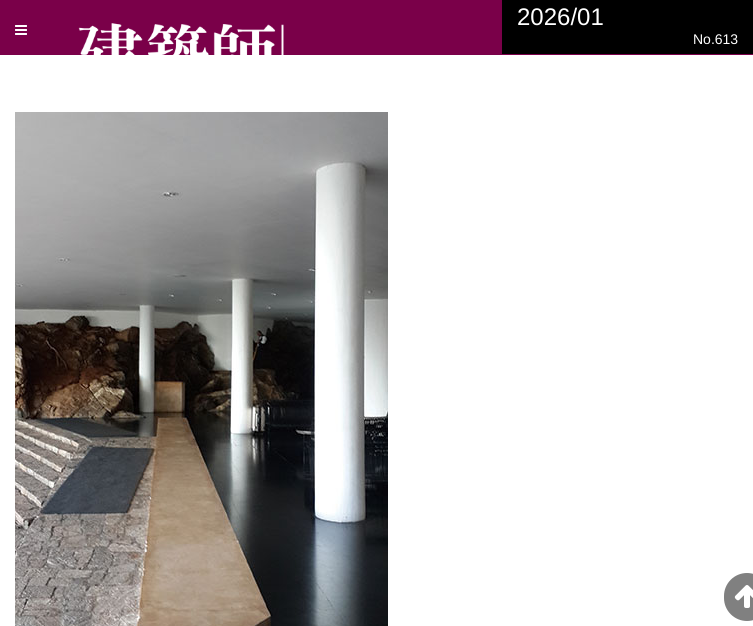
#include <cairo.h>
#include <math.h>
#include <stddef.h>


static void ink(cairo_t *ctx, unsigned color) {
    cairo_set_source_rgb(ctx, (color >> 16) / 255.0, (color >> 8 & 255) / 255.0, (color & 255) / 255.0);
}

static void round_path(cairo_t *ctx, double x, double y, double w, double h, double r) {
    cairo_new_sub_path(ctx);
    cairo_arc(ctx, x + w - r, y + h - r, r, 0, M_PI / 2);
    cairo_arc(ctx, x + r, y + h - r, r, M_PI / 2, M_PI);
    cairo_arc(ctx, x + r, y + r, r, M_PI, 1.5 * M_PI);
    cairo_arc(ctx, x + w - r, y + r, r, 1.5 * M_PI, 2 * M_PI);
    cairo_close_path(ctx);
}

static void paste(cairo_t *ctx, const char *path, double x, double y, double w, double h) {
    cairo_surface_t *image = cairo_image_surface_create_from_png(path);
    cairo_save(ctx);
    cairo_set_source_surface(ctx, image, x, y);
    cairo_rectangle(ctx, x, y, w, h);
    cairo_fill(ctx);
    cairo_restore(ctx);
    cairo_surface_destroy(image);
}

int main(void) {
    cairo_surface_t *surface = cairo_image_surface_create(CAIRO_FORMAT_RGB24, 753, 626);
    cairo_t *ctx = cairo_create(surface);
    cairo_font_options_t *options = cairo_font_options_create();
    cairo_font_options_set_hint_metrics(options, CAIRO_HINT_METRICS_OFF);
    cairo_font_options_set_hint_style(options, CAIRO_HINT_STYLE_NONE);
    cairo_set_font_options(ctx, options);
    cairo_set_miter_limit(ctx, 4);
    ink(ctx, 0xFFFFFF);
    cairo_paint(ctx);
    ink(ctx, 0x7A0049);
    cairo_rectangle(ctx, 0, 0, 753, 55);
    cairo_fill(ctx);
    paste(ctx, "media/1.png", 15, 25, 12, 10);
    paste(ctx, "media/2.png", 78, 23, 206, 32);
    ink(ctx, 0x000000);
    cairo_rectangle(ctx, 502, 0, 251, 54);
    cairo_fill(ctx);
    cairo_select_font_face(ctx, "Liberation Sans", CAIRO_FONT_SLANT_NORMAL, CAIRO_FONT_WEIGHT_NORMAL);
    cairo_set_font_size(ctx, 24);
    ink(ctx, 0xFFFFFF);
    cairo_move_to(ctx, 517, 25);
    cairo_show_text(ctx, "2026/01");
    cairo_set_font_size(ctx, 14);
    cairo_move_to(ctx, 693, 44);
    cairo_show_text(ctx, "No.613");
    paste(ctx, "media/3.png", 15, 112, 373, 514);
    ink(ctx, 0x808080);
    round_path(ctx, 724, 573, 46, 48, 23);
    cairo_fill(ctx);
    paste(ctx, "media/4.png", 734, 585, 19, 23);
    cairo_surface_write_to_png(surface, "image.png");
    cairo_font_options_destroy(options);
    cairo_destroy(ctx);
    cairo_surface_destroy(surface);
    return 0;
}
